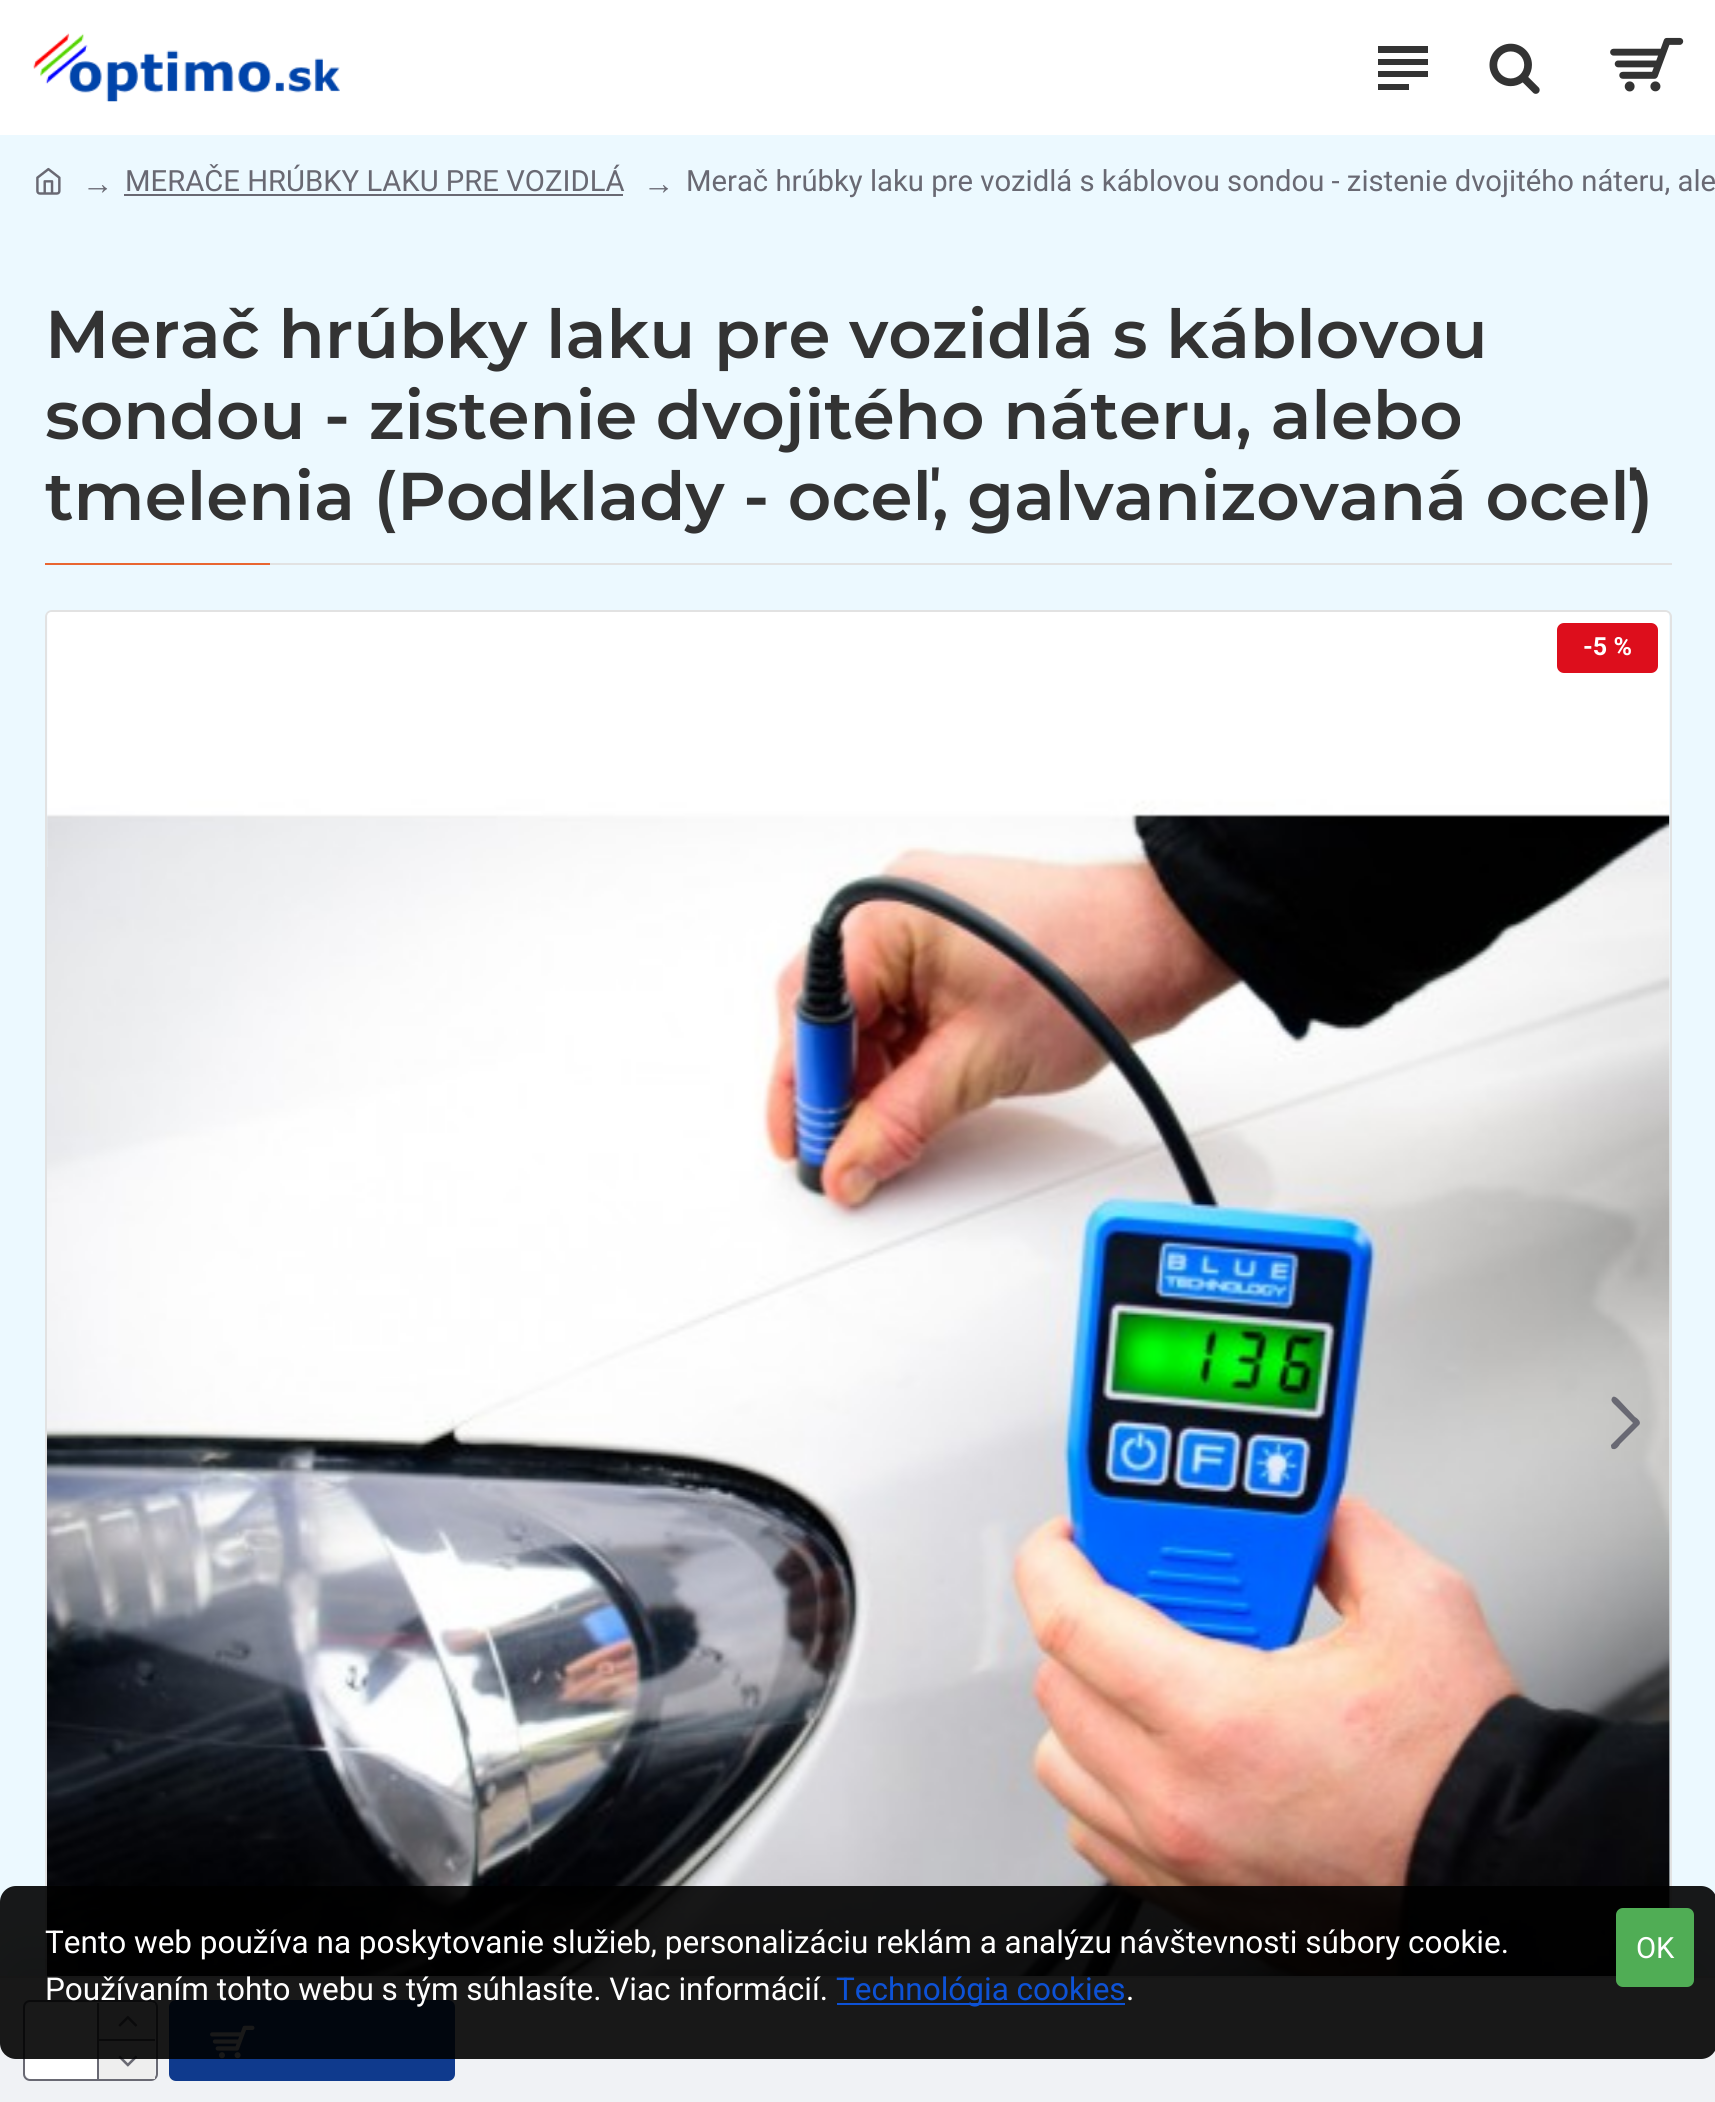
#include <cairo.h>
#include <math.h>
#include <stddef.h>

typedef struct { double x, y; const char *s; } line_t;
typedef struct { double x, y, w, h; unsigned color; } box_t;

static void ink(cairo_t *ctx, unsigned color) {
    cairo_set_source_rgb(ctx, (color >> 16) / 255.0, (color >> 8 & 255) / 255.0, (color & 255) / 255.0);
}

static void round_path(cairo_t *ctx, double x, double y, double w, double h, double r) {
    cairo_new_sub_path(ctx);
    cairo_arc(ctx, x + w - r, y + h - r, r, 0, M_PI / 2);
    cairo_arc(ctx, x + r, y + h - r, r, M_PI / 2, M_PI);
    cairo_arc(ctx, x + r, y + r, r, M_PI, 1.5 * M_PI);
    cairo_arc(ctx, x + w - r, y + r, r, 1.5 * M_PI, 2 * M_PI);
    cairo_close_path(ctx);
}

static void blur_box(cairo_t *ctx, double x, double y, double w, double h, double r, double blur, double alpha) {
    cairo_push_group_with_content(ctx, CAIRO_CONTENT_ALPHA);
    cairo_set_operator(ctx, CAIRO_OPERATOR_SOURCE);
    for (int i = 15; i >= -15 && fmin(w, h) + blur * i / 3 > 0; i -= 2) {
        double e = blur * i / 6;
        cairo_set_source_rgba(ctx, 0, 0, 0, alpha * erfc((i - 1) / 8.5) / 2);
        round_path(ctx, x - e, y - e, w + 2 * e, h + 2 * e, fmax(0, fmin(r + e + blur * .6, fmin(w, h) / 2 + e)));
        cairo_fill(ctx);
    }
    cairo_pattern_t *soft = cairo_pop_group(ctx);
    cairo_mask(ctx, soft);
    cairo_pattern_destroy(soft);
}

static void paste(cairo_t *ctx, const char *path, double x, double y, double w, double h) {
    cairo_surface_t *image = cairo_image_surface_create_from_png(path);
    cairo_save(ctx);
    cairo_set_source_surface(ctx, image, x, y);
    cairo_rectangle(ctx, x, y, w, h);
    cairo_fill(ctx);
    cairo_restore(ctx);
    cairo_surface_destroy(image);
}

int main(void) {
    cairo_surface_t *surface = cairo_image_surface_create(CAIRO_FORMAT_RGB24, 1715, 2102);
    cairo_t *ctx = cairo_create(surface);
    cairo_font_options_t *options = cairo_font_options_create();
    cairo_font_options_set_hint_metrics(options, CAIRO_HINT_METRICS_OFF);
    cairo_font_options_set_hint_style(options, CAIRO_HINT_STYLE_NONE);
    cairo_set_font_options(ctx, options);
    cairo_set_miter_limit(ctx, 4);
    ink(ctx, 0xECF9FF);
    cairo_paint(ctx);
    ink(ctx, 0xFFFFFF);
    cairo_rectangle(ctx, 0, 0, 1715, 135);
    cairo_fill(ctx);
    paste(ctx, "media/1.png", 33, 33, 307, 69);
    ink(ctx, 0x333333);
    cairo_new_path(ctx);
    cairo_move_to(ctx, 1378, 46);
    cairo_line_to(ctx, 1428, 46);
    cairo_line_to(ctx, 1428, 53);
    cairo_line_to(ctx, 1378, 53);
    cairo_close_path(ctx);
    cairo_move_to(ctx, 1378, 77);
    cairo_line_to(ctx, 1378, 71);
    cairo_line_to(ctx, 1428, 71);
    cairo_line_to(ctx, 1428, 77);
    cairo_close_path(ctx);
    cairo_move_to(ctx, 1428, 59);
    cairo_line_to(ctx, 1428, 65);
    cairo_line_to(ctx, 1378, 65);
    cairo_line_to(ctx, 1378, 59);
    cairo_close_path(ctx);
    cairo_move_to(ctx, 1409, 84);
    cairo_line_to(ctx, 1409, 90);
    cairo_line_to(ctx, 1378, 90);
    cairo_line_to(ctx, 1378, 84);
    cairo_close_path(ctx);
    cairo_fill(ctx);
    paste(ctx, "media/2.png", 1489, 43, 51, 51);
    paste(ctx, "media/3.png", 1610, 37, 74, 55);
    paste(ctx, "media/4.png", 36, 167, 25, 28);
    cairo_select_font_face(ctx, "Liberation Serif", CAIRO_FONT_SLANT_NORMAL, CAIRO_FONT_WEIGHT_NORMAL);
    cairo_set_font_size(ctx, 31.5);
    ink(ctx, 0x696973);
    cairo_move_to(ctx, 82, 194);
    cairo_show_text(ctx, "→");
    cairo_select_font_face(ctx, "Roboto", CAIRO_FONT_SLANT_NORMAL, CAIRO_FONT_WEIGHT_NORMAL);
    cairo_set_font_size(ctx, 29.25);
    cairo_move_to(ctx, 125, 191);
    cairo_show_text(ctx, "MERAČE HRÚBKY LAKU PRE VOZIDLÁ");
    cairo_rectangle(ctx, 124, 194, 499, 2);
    cairo_fill(ctx);
    cairo_select_font_face(ctx, "Liberation Serif", CAIRO_FONT_SLANT_NORMAL, CAIRO_FONT_WEIGHT_NORMAL);
    cairo_set_font_size(ctx, 31.5);
    cairo_move_to(ctx, 643, 194);
    cairo_show_text(ctx, "→");
    cairo_select_font_face(ctx, "Roboto", CAIRO_FONT_SLANT_NORMAL, CAIRO_FONT_WEIGHT_NORMAL);
    cairo_set_font_size(ctx, 29.25);
    cairo_move_to(ctx, 686, 191);
    cairo_show_text(ctx, "Merač hrúbky laku pre vozidlá s káblovou sondou - zistenie dvojitého náteru, ale");
    ink(ctx, 0xE2E2E2);
    cairo_rectangle(ctx, 270, 563, 1402, 2);
    cairo_fill(ctx);
    cairo_select_font_face(ctx, "Montserrat SemiBold", CAIRO_FONT_SLANT_NORMAL, CAIRO_FONT_WEIGHT_NORMAL);
    cairo_set_font_size(ctx, 67.5);
    ink(ctx, 0x333333);
    {
        static const line_t items[] = {
            {45, 358, "Merač hrúbky laku pre vozidlá s káblovou"},
            {45, 439, "sondou - zistenie dvojitého náteru, alebo"},
            {45, 520, "tmelenia (Podklady - oceľ, galvanizovaná oceľ)"},
        };
        for (size_t i = 0; i < sizeof items / sizeof *items; i++) {
            cairo_move_to(ctx, items[i].x, items[i].y);
            cairo_show_text(ctx, items[i].s);
        }
    }
    ink(ctx, 0xE96631);
    cairo_rectangle(ctx, 45, 563, 225, 2);
    cairo_fill(ctx);
    round_path(ctx, 46, 611, 1625, 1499, 6);
    ink(ctx, 0xE2E2E2);
    cairo_stroke(ctx);
    paste(ctx, "media/5.png", 47, 612, 1623, 1364);
    ink(ctx, 0xDD0E1C);
    round_path(ctx, 1557, 623, 101, 50, 7);
    cairo_fill(ctx);
    cairo_select_font_face(ctx, "Roboto", CAIRO_FONT_SLANT_NORMAL, CAIRO_FONT_WEIGHT_BOLD);
    cairo_set_font_size(ctx, 25);
    ink(ctx, 0xFFFFFF);
    cairo_move_to(ctx, 1583, 655);
    cairo_show_text(ctx, "-5 %");
    ink(ctx, 0x696973);
    cairo_new_path(ctx);
    cairo_move_to(ctx, 1639, 1425);
    cairo_line_to(ctx, 1620, 1444);
    cairo_curve_to(ctx, 1619, 1446, 1616, 1450, 1613, 1449);
    cairo_curve_to(ctx, 1611, 1449, 1611, 1446, 1611, 1445);
    cairo_line_to(ctx, 1633, 1423);
    cairo_line_to(ctx, 1615, 1405);
    cairo_curve_to(ctx, 1614, 1404, 1610, 1401, 1612, 1398);
    cairo_curve_to(ctx, 1614, 1394, 1619, 1400, 1620, 1401);
    cairo_line_to(ctx, 1635, 1417);
    cairo_curve_to(ctx, 1637, 1418, 1642, 1422, 1639, 1425);
    cairo_close_path(ctx);
    cairo_fill(ctx);
    ink(ctx, 0x000000);
    blur_box(ctx, 11, 1964, 1695, 106, 0, 34, 0.15);
    ink(ctx, 0xF0F2F5);
    cairo_rectangle(ctx, 0, 1978, 1715, 124);
    cairo_fill(ctx);
    ink(ctx, 0xE2E2E2);
    cairo_rectangle(ctx, 0, 1976, 1715, 2);
    cairo_fill(ctx);
    round_path(ctx, 24, 2001, 133, 79, 6);
    ink(ctx, 0x696973);
    cairo_stroke(ctx);
    ink(ctx, 0xFFFFFF);
    round_path(ctx, 25, 2003, 130, 76, 7);
    cairo_fill(ctx);
    {
        static const box_t items[] = {
            {97, 2003, 2, 76, 0x696973},
            {99, 2003, 56, 36, 0xEEEEEE},
            {99, 2039, 56, 2, 0x696973},
        };
        for (size_t i = 0; i < sizeof items / sizeof *items; i++) {
            ink(ctx, items[i].color);
            cairo_rectangle(ctx, items[i].x, items[i].y, items[i].w, items[i].h);
            cairo_fill(ctx);
        }
    }
    paste(ctx, "media/6.png", 118, 2015, 20, 12);
    ink(ctx, 0xEEEEEE);
    cairo_rectangle(ctx, 99, 2041, 56, 38);
    cairo_fill(ctx);
    paste(ctx, "media/7.png", 118, 2055, 20, 12);
    ink(ctx, 0x0F3A8D);
    round_path(ctx, 169, 2000, 286, 81, 7);
    cairo_fill(ctx);
    paste(ctx, "media/8.png", 210, 2025, 45, 34);
    cairo_set_source_rgba(ctx, 0, 0, 0, 0.9);
    round_path(ctx, 0, 1886, 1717, 173, 16);
    cairo_fill(ctx);
    cairo_select_font_face(ctx, "Roboto", CAIRO_FONT_SLANT_NORMAL, CAIRO_FONT_WEIGHT_NORMAL);
    cairo_set_font_size(ctx, 31.5);
    ink(ctx, 0xFFFFFF);
    cairo_move_to(ctx, 45, 1953);
    cairo_show_text(ctx, "Tento web používa na poskytovanie služieb, personalizáciu reklám a analýzu návštevnosti súbory cookie.");
    cairo_move_to(ctx, 45, 2000);
    cairo_show_text(ctx, "Používaním tohto webu s tým súhlasíte. Viac informácií.");
    ink(ctx, 0x0D52D6);
    cairo_rectangle(ctx, 837, 2003, 288, 2);
    cairo_fill(ctx);
    cairo_move_to(ctx, 836, 2000);
    cairo_show_text(ctx, "Technológia cookies");
    ink(ctx, 0xFFFFFF);
    cairo_move_to(ctx, 1126, 2000);
    cairo_show_text(ctx, ".");
    ink(ctx, 0x50AD55);
    round_path(ctx, 1616, 1908, 78, 79, 7);
    cairo_fill(ctx);
    cairo_set_font_size(ctx, 29.25);
    ink(ctx, 0xFFFFFF);
    cairo_move_to(ctx, 1636, 1958);
    cairo_show_text(ctx, "OK");
    cairo_surface_write_to_png(surface, "image.png");
    cairo_font_options_destroy(options);
    cairo_destroy(ctx);
    cairo_surface_destroy(surface);
    return 0;
}
